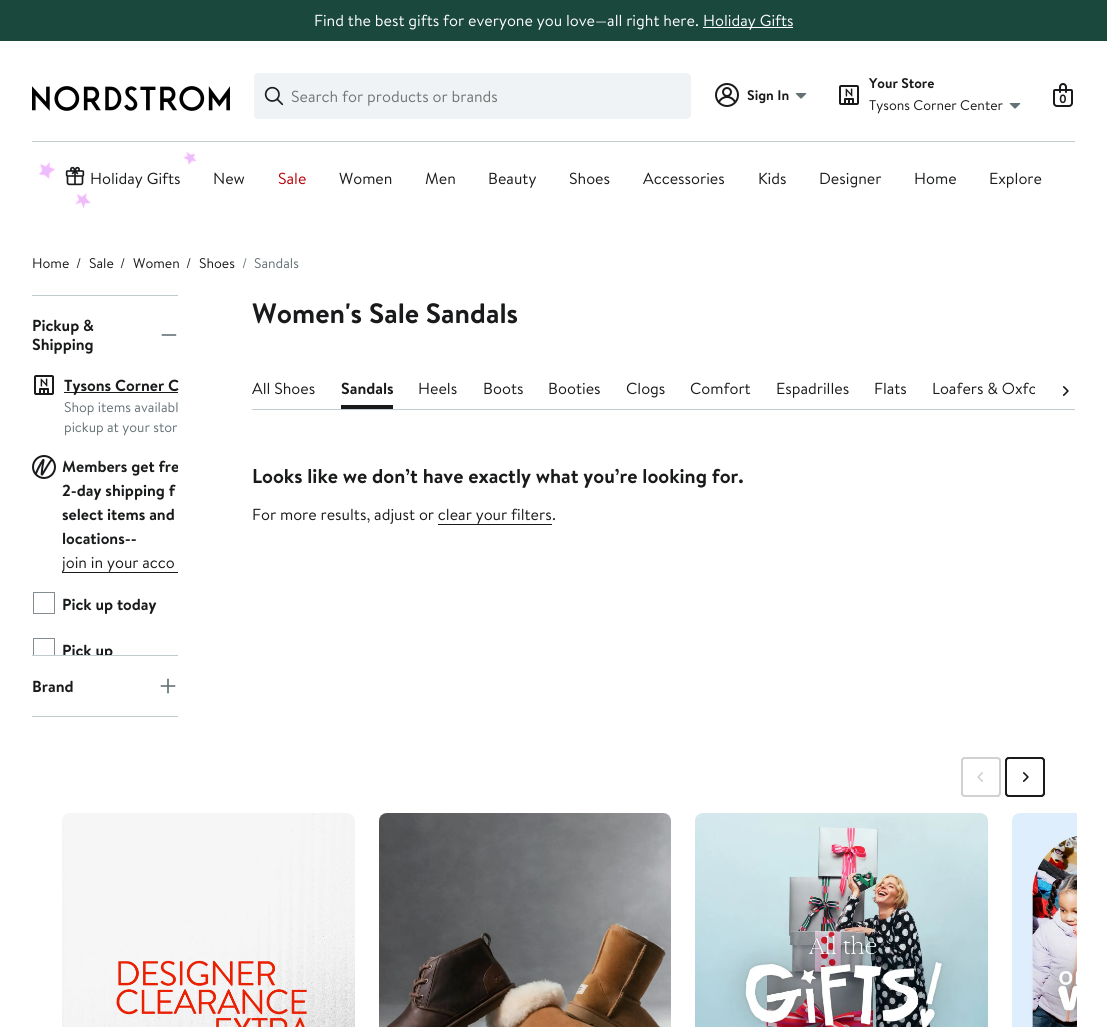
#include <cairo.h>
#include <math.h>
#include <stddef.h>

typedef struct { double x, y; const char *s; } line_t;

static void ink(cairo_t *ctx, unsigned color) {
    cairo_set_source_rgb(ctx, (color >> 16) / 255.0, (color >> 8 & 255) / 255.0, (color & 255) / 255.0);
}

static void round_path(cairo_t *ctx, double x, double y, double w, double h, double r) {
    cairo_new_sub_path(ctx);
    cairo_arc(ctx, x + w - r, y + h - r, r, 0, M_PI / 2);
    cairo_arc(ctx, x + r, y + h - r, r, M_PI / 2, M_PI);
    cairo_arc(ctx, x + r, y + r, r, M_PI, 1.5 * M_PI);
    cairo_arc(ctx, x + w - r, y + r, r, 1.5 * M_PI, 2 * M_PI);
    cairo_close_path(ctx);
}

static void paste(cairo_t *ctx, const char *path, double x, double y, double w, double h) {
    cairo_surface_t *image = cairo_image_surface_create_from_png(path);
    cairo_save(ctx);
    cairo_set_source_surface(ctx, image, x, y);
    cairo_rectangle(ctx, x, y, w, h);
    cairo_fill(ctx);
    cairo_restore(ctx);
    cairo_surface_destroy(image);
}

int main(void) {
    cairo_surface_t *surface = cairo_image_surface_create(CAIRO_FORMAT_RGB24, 1107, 1027);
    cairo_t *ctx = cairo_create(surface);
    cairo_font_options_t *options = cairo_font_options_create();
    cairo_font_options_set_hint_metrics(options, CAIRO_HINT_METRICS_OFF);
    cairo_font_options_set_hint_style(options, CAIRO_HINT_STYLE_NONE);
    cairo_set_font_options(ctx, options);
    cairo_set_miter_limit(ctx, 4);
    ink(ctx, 0xFFFFFF);
    cairo_paint(ctx);
    ink(ctx, 0x1A483C);
    cairo_rectangle(ctx, 0, 0, 1107, 41);
    cairo_fill(ctx);
    cairo_select_font_face(ctx, "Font", CAIRO_FONT_SLANT_NORMAL, CAIRO_FONT_WEIGHT_NORMAL);
    cairo_set_font_size(ctx, 16);
    ink(ctx, 0xFFFFFF);
    cairo_move_to(ctx, 314, 26);
    cairo_show_text(ctx, "Find the best gifts for everyone you love—all right here.");
    cairo_rectangle(ctx, 703, 27, 90, 1);
    cairo_fill(ctx);
    cairo_move_to(ctx, 703, 26);
    cairo_show_text(ctx, "Holiday Gifts");
    paste(ctx, "media/1.png", 32, 86, 198, 25);
    ink(ctx, 0xF0F3F5);
    round_path(ctx, 254, 73, 437, 46, 4);
    cairo_fill(ctx);
    paste(ctx, "media/2.png", 264, 86, 20, 20);
    ink(ctx, 0x757575);
    cairo_move_to(ctx, 291, 102);
    cairo_show_text(ctx, "Search for products or brands");
    paste(ctx, "media/3.png", 715, 83, 24, 24);
    cairo_select_font_face(ctx, "Font", CAIRO_FONT_SLANT_NORMAL, CAIRO_FONT_WEIGHT_BOLD);
    cairo_set_font_size(ctx, 14);
    ink(ctx, 0x191A1B);
    cairo_move_to(ctx, 747, 100);
    cairo_show_text(ctx, "Sign In");
    paste(ctx, "media/4.png", 795, 93, 12, 6);
    paste(ctx, "media/5.png", 839, 85, 20, 20);
    cairo_move_to(ctx, 869, 88);
    cairo_show_text(ctx, "Your Store");
    cairo_select_font_face(ctx, "Font", CAIRO_FONT_SLANT_NORMAL, CAIRO_FONT_WEIGHT_NORMAL);
    cairo_move_to(ctx, 869, 110);
    cairo_show_text(ctx, "Tysons Corner Center");
    paste(ctx, "media/4.png", 1009, 103, 12, 6);
    paste(ctx, "media/6.png", 1053, 83, 20, 24);
    cairo_select_font_face(ctx, "Font", CAIRO_FONT_SLANT_NORMAL, CAIRO_FONT_WEIGHT_BOLD);
    cairo_set_font_size(ctx, 12);
    cairo_move_to(ctx, 1059, 103);
    cairo_show_text(ctx, "0");
    ink(ctx, 0xC2CBCD);
    cairo_rectangle(ctx, 32, 141, 1043, 1);
    cairo_fill(ctx);
    paste(ctx, "media/8.png", 65, 166, 20, 20);
    cairo_select_font_face(ctx, "Font", CAIRO_FONT_SLANT_NORMAL, CAIRO_FONT_WEIGHT_NORMAL);
    cairo_set_font_size(ctx, 16);
    ink(ctx, 0x191A1B);
    cairo_move_to(ctx, 90, 184);
    cairo_show_text(ctx, "Holiday Gifts");
    paste(ctx, "media/7.png", 38, 151, 159, 58);
    cairo_move_to(ctx, 213, 184);
    cairo_show_text(ctx, "New");
    ink(ctx, 0xB80009);
    cairo_move_to(ctx, 278, 184);
    cairo_show_text(ctx, "Sale");
    ink(ctx, 0x191A1B);
    {
        static const line_t items[] = {
            {339, 184, "Women"},
            {425, 184, "Men"},
            {488, 184, "Beauty"},
            {569, 184, "Shoes"},
            {643, 184, "Accessories"},
            {758, 184, "Kids"},
            {819, 184, "Designer"},
            {914, 184, "Home"},
            {989, 184, "Explore"},
        };
        for (size_t i = 0; i < sizeof items / sizeof *items; i++) {
            cairo_move_to(ctx, items[i].x, items[i].y);
            cairo_show_text(ctx, items[i].s);
        }
    }
    cairo_set_font_size(ctx, 14);
    {
        static const line_t items[] = {
            {32, 268, "Home"},
            {76, 268, "/"},
            {89, 268, "Sale"},
            {120, 268, "/"},
            {133, 268, "Women"},
            {186, 268, "/"},
            {199, 268, "Shoes"},
        };
        for (size_t i = 0; i < sizeof items / sizeof *items; i++) {
            cairo_move_to(ctx, items[i].x, items[i].y);
            cairo_show_text(ctx, items[i].s);
        }
    }
    ink(ctx, 0x647175);
    cairo_move_to(ctx, 242, 268);
    cairo_show_text(ctx, "/");
    cairo_move_to(ctx, 254, 268);
    cairo_show_text(ctx, "Sandals");
    ink(ctx, 0xC2CBCD);
    cairo_rectangle(ctx, 32, 295, 146, 1);
    cairo_fill(ctx);
    cairo_rectangle(ctx, 32, 655, 146, 1);
    cairo_fill(ctx);
    cairo_select_font_face(ctx, "Font", CAIRO_FONT_SLANT_NORMAL, CAIRO_FONT_WEIGHT_BOLD);
    cairo_set_font_size(ctx, 16);
    ink(ctx, 0x191A1B);
    cairo_move_to(ctx, 32, 331);
    cairo_show_text(ctx, "Pickup &");
    paste(ctx, "media/9.png", 161, 334, 16, 2);
    cairo_move_to(ctx, 32, 350);
    cairo_show_text(ctx, "Shipping");
    paste(ctx, "media/5.png", 34, 375, 20, 20);
    cairo_rectangle(ctx, 64, 392, 114, 1);
    cairo_fill(ctx);
    cairo_move_to(ctx, 64, 391);
    cairo_show_text(ctx, "Tysons Corner C");
    cairo_select_font_face(ctx, "Font", CAIRO_FONT_SLANT_NORMAL, CAIRO_FONT_WEIGHT_NORMAL);
    cairo_set_font_size(ctx, 14);
    ink(ctx, 0x647175);
    cairo_move_to(ctx, 64, 412);
    cairo_show_text(ctx, "Shop items availabl");
    cairo_move_to(ctx, 64, 432);
    cairo_show_text(ctx, "pickup at your stor");
    paste(ctx, "media/10.png", 32, 455, 24, 24);
    cairo_save(ctx);
    cairo_rectangle(ctx, 32, 373, 146, 282);
    cairo_clip(ctx);
    cairo_select_font_face(ctx, "Font", CAIRO_FONT_SLANT_NORMAL, CAIRO_FONT_WEIGHT_BOLD);
    cairo_set_font_size(ctx, 16);
    ink(ctx, 0x191A1B);
    cairo_move_to(ctx, 62, 472);
    cairo_show_text(ctx, "Members get fre");
    cairo_restore(ctx);
    cairo_select_font_face(ctx, "Font", CAIRO_FONT_SLANT_NORMAL, CAIRO_FONT_WEIGHT_BOLD);
    cairo_set_font_size(ctx, 16);
    ink(ctx, 0x191A1B);
    {
        static const line_t items[] = {
            {62, 496, "2-day shipping f"},
            {62, 520, "select items and"},
            {62, 544, "locations--"},
        };
        for (size_t i = 0; i < sizeof items / sizeof *items; i++) {
            cairo_move_to(ctx, items[i].x, items[i].y);
            cairo_show_text(ctx, items[i].s);
        }
    }
    cairo_select_font_face(ctx, "Font", CAIRO_FONT_SLANT_NORMAL, CAIRO_FONT_WEIGHT_NORMAL);
    cairo_move_to(ctx, 62, 568);
    cairo_show_text(ctx, "join in your acco");
    cairo_rectangle(ctx, 62, 572, 116, 1);
    cairo_fill(ctx);
    cairo_rectangle(ctx, 33.5, 592.5, 21, 21);
    ink(ctx, 0x838D91);
    cairo_set_line_width(ctx, 1);
    cairo_stroke(ctx);
    cairo_select_font_face(ctx, "Font", CAIRO_FONT_SLANT_NORMAL, CAIRO_FONT_WEIGHT_BOLD);
    ink(ctx, 0x191A1B);
    cairo_move_to(ctx, 62, 610);
    cairo_show_text(ctx, "Pick up today");
    cairo_save(ctx);
    cairo_rectangle(ctx, 32, 373, 146, 282);
    cairo_clip(ctx);
    cairo_rectangle(ctx, 33.5, 638.5, 21, 21);
    ink(ctx, 0x838D91);
    cairo_stroke(ctx);
    ink(ctx, 0x191A1B);
    cairo_move_to(ctx, 62, 656);
    cairo_show_text(ctx, "Pick up");
    cairo_restore(ctx);
    ink(ctx, 0xC2CBCD);
    cairo_rectangle(ctx, 32, 716, 146, 1);
    cairo_fill(ctx);
    ink(ctx, 0x191A1B);
    cairo_move_to(ctx, 32, 692);
    cairo_show_text(ctx, "Brand");
    paste(ctx, "media/11.png", 160, 678, 16, 16);
    cairo_set_font_size(ctx, 28);
    cairo_move_to(ctx, 252, 323);
    cairo_show_text(ctx, "Women's Sale Sandals");
    ink(ctx, 0xC2CBCD);
    cairo_rectangle(ctx, 252, 409, 823, 1);
    cairo_fill(ctx);
    cairo_select_font_face(ctx, "Font", CAIRO_FONT_SLANT_NORMAL, CAIRO_FONT_WEIGHT_NORMAL);
    cairo_set_font_size(ctx, 16);
    ink(ctx, 0x191A1B);
    cairo_move_to(ctx, 252, 394);
    cairo_show_text(ctx, "All Shoes");
    cairo_rectangle(ctx, 341, 405, 52, 4);
    cairo_fill(ctx);
    cairo_select_font_face(ctx, "Font", CAIRO_FONT_SLANT_NORMAL, CAIRO_FONT_WEIGHT_BOLD);
    cairo_move_to(ctx, 341, 394);
    cairo_show_text(ctx, "Sandals");
    cairo_select_font_face(ctx, "Font", CAIRO_FONT_SLANT_NORMAL, CAIRO_FONT_WEIGHT_NORMAL);
    {
        static const line_t items[] = {
            {418, 394, "Heels"},
            {483, 394, "Boots"},
            {548, 394, "Booties"},
            {626, 394, "Clogs"},
            {690, 394, "Comfort"},
            {776, 394, "Espadrilles"},
            {874, 394, "Flats"},
        };
        for (size_t i = 0; i < sizeof items / sizeof *items; i++) {
            cairo_move_to(ctx, items[i].x, items[i].y);
            cairo_show_text(ctx, items[i].s);
        }
    }
    cairo_save(ctx);
    cairo_rectangle(ctx, 252, 367, 783, 42);
    cairo_clip(ctx);
    cairo_move_to(ctx, 932, 394);
    cairo_show_text(ctx, "Loafers & Oxfo");
    cairo_restore(ctx);
    paste(ctx, "media/12.png", 1062, 386, 7, 10);
    cairo_select_font_face(ctx, "Font", CAIRO_FONT_SLANT_NORMAL, CAIRO_FONT_WEIGHT_BOLD);
    cairo_set_font_size(ctx, 20);
    cairo_move_to(ctx, 252, 483);
    cairo_show_text(ctx, "Looks like we don’t have exactly what you’re looking for.");
    cairo_select_font_face(ctx, "Font", CAIRO_FONT_SLANT_NORMAL, CAIRO_FONT_WEIGHT_NORMAL);
    cairo_set_font_size(ctx, 16);
    cairo_move_to(ctx, 252, 520);
    cairo_show_text(ctx, "For more results, adjust or clear your filters");
    cairo_move_to(ctx, 552, 520);
    cairo_show_text(ctx, ".");
    cairo_rectangle(ctx, 438, 524, 114, 1);
    cairo_fill(ctx);
    round_path(ctx, 962, 758, 38, 38, 3);
    ink(ctx, 0xD1D1D1);
    cairo_set_line_width(ctx, 2);
    cairo_stroke(ctx);
    ink(ctx, 0xFFFFFF);
    round_path(ctx, 962, 758, 38, 38, 3);
    cairo_fill_preserve(ctx);
    ink(ctx, 0xD1D1D1);
    cairo_stroke(ctx);
    paste(ctx, "media/13.png", 977, 772, 6, 10);
    round_path(ctx, 1006, 758, 38, 38, 3);
    ink(ctx, 0x191A1B);
    cairo_stroke(ctx);
    ink(ctx, 0xFFFFFF);
    round_path(ctx, 1006, 758, 38, 38, 3);
    cairo_fill_preserve(ctx);
    ink(ctx, 0x191A1B);
    cairo_stroke(ctx);
    paste(ctx, "media/12.png", 1022, 772, 7, 10);
    paste(ctx, "media/14.png", 62, 813, 293, 214);
    paste(ctx, "media/15.png", 379, 813, 292, 214);
    paste(ctx, "media/16.png", 695, 813, 293, 214);
    paste(ctx, "media/17.png", 1012, 813, 65, 214);
    cairo_surface_write_to_png(surface, "image.png");
    cairo_font_options_destroy(options);
    cairo_destroy(ctx);
    cairo_surface_destroy(surface);
    return 0;
}
